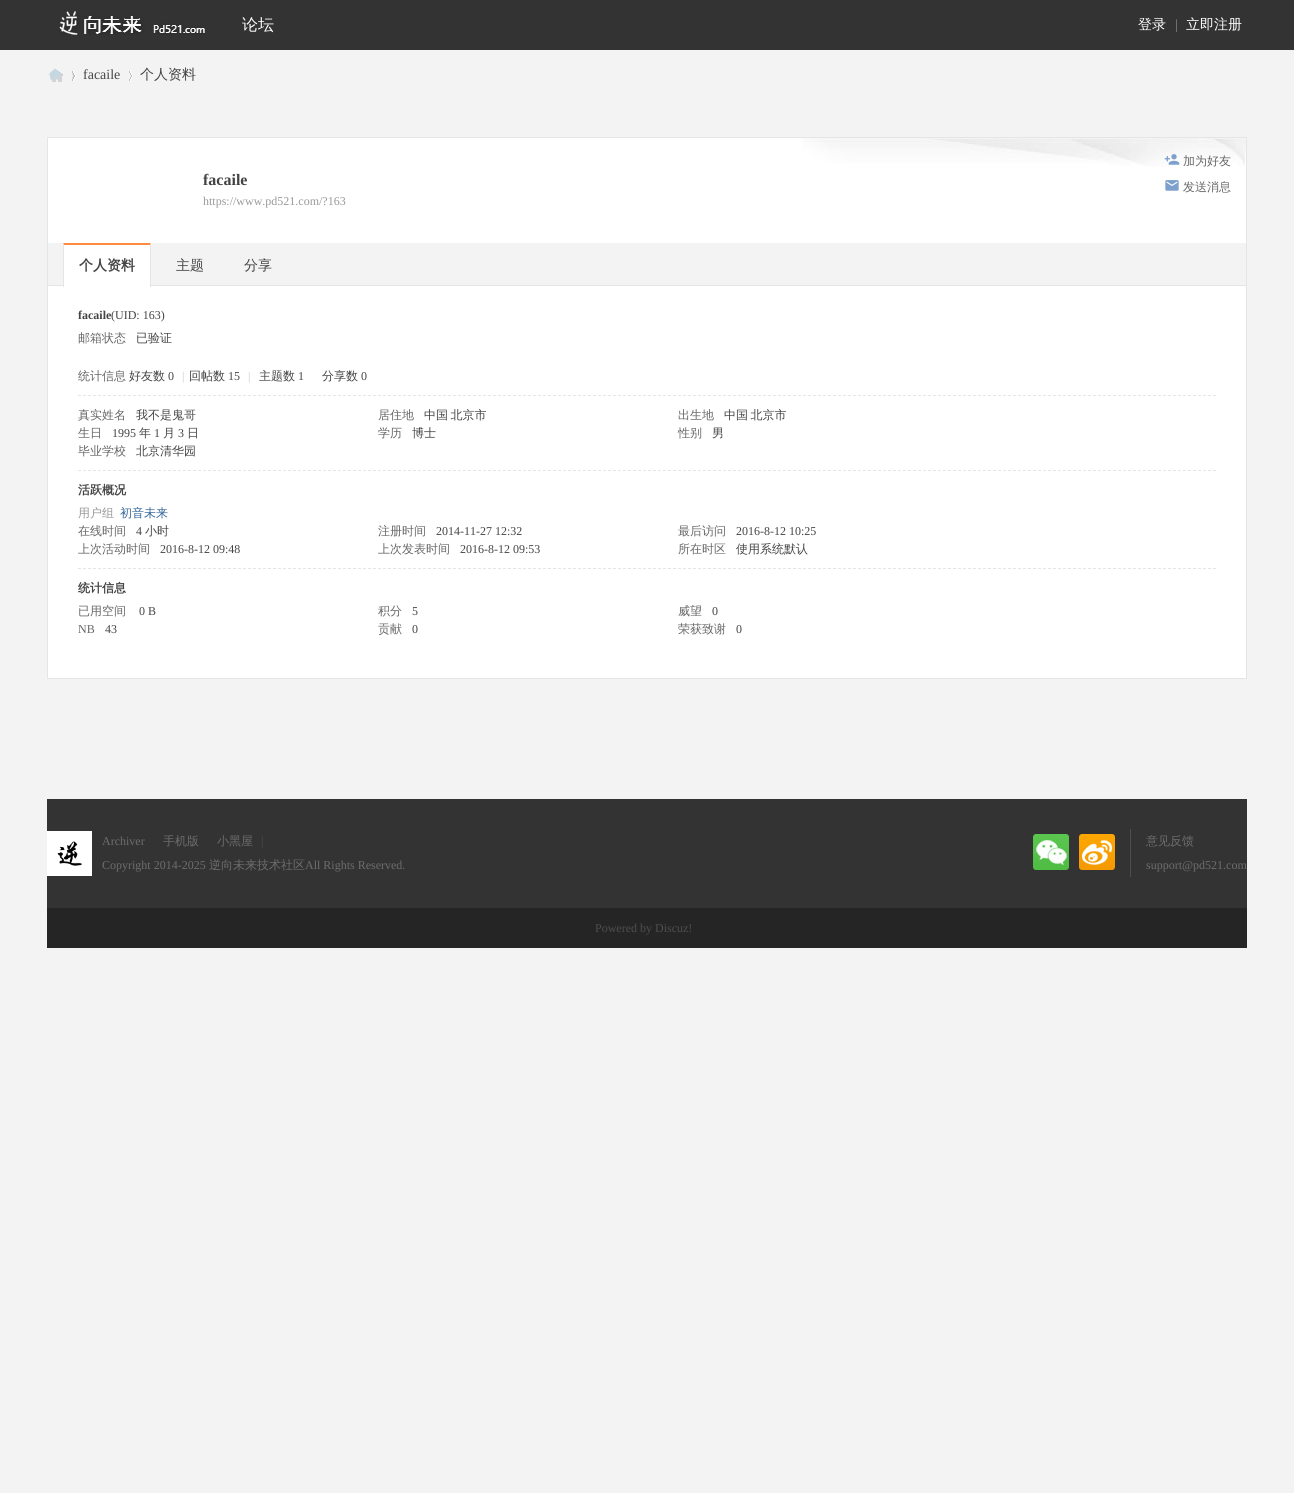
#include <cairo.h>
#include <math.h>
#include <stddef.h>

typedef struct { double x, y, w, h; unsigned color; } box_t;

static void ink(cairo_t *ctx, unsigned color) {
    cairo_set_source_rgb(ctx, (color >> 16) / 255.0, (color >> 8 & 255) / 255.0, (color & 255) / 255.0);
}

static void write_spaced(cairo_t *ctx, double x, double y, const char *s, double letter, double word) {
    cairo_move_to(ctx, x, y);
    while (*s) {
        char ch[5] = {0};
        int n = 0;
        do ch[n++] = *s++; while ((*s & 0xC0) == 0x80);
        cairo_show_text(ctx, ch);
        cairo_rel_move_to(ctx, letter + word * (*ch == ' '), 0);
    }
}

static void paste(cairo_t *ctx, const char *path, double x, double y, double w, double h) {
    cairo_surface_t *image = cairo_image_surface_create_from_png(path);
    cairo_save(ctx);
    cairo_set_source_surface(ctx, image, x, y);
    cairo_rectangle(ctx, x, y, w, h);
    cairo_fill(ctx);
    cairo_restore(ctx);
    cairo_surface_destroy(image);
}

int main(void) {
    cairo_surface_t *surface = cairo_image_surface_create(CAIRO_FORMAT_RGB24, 1294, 1493);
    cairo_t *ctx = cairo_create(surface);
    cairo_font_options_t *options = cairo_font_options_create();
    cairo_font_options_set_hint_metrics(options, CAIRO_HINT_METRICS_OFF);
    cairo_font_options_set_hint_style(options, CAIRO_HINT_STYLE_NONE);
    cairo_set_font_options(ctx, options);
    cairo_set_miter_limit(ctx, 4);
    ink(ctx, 0xF3F3F3);
    cairo_paint(ctx);
    ink(ctx, 0x333333);
    cairo_rectangle(ctx, 0, 0, 1294, 50);
    cairo_fill(ctx);
    paste(ctx, "media/1.png", 59, 11, 146, 24);
    cairo_select_font_face(ctx, "WenQuanYi Zen Hei Medium", CAIRO_FONT_SLANT_NORMAL, CAIRO_FONT_WEIGHT_NORMAL);
    cairo_set_font_size(ctx, 16);
    ink(ctx, 0xFFFFFF);
    cairo_move_to(ctx, 242, 30);
    cairo_show_text(ctx, "论坛");
    cairo_set_font_size(ctx, 14);
    cairo_move_to(ctx, 1138, 29);
    cairo_show_text(ctx, "登录");
    cairo_select_font_face(ctx, "Liberation Serif", CAIRO_FONT_SLANT_NORMAL, CAIRO_FONT_WEIGHT_NORMAL);
    ink(ctx, 0x888888);
    cairo_move_to(ctx, 1175, 29);
    cairo_show_text(ctx, "|");
    cairo_select_font_face(ctx, "WenQuanYi Zen Hei Medium", CAIRO_FONT_SLANT_NORMAL, CAIRO_FONT_WEIGHT_NORMAL);
    ink(ctx, 0xFFFFFF);
    cairo_move_to(ctx, 1186, 29);
    cairo_show_text(ctx, "立即注册");
    paste(ctx, "media/2.png", 49, 70, 14, 12);
    paste(ctx, "media/3.png", 48, 68, 14, 12);
    paste(ctx, "media/4.png", 72, 71, 4, 10);
    cairo_select_font_face(ctx, "Liberation Serif", CAIRO_FONT_SLANT_NORMAL, CAIRO_FONT_WEIGHT_NORMAL);
    ink(ctx, 0xBDBDBD);
    cairo_move_to(ctx, 71, 79);
    cairo_show_text(ctx, "›");
    ink(ctx, 0x444444);
    cairo_move_to(ctx, 83, 79);
    cairo_show_text(ctx, "facaile");
    paste(ctx, "media/4.png", 129, 71, 4, 10);
    cairo_select_font_face(ctx, "WenQuanYi Zen Hei Medium", CAIRO_FONT_SLANT_NORMAL, CAIRO_FONT_WEIGHT_NORMAL);
    cairo_move_to(ctx, 140, 79);
    cairo_show_text(ctx, "个人资料");
    ink(ctx, 0xFFFFFF);
    cairo_rectangle(ctx, 48, 138, 1198, 105);
    cairo_fill(ctx);
    paste(ctx, "media/5.png", 802, 138, 444, 29);
    {
        static const box_t items[] = {
            {47, 137, 1200, 1, 0xE5E5E5},
            {1246, 137, 1, 542, 0xE5E5E5},
            {47, 137, 1, 149, 0xE5E5E5},
        };
        for (size_t i = 0; i < sizeof items / sizeof *items; i++) {
            ink(ctx, items[i].color);
            cairo_rectangle(ctx, items[i].x, items[i].y, items[i].w, items[i].h);
            cairo_fill(ctx);
        }
    }
    cairo_select_font_face(ctx, "Liberation Serif", CAIRO_FONT_SLANT_NORMAL, CAIRO_FONT_WEIGHT_BOLD);
    cairo_set_font_size(ctx, 16);
    ink(ctx, 0x444444);
    cairo_move_to(ctx, 203, 185);
    cairo_show_text(ctx, "facaile");
    cairo_select_font_face(ctx, "Liberation Serif", CAIRO_FONT_SLANT_NORMAL, CAIRO_FONT_WEIGHT_NORMAL);
    cairo_set_font_size(ctx, 12);
    ink(ctx, 0x999999);
    cairo_move_to(ctx, 203, 205);
    cairo_show_text(ctx, "https://www.pd521.com/?163");
    paste(ctx, "media/6.png", 1164, 154, 16, 11);
    cairo_select_font_face(ctx, "WenQuanYi Zen Hei Medium", CAIRO_FONT_SLANT_NORMAL, CAIRO_FONT_WEIGHT_NORMAL);
    ink(ctx, 0x666666);
    cairo_move_to(ctx, 1183, 165);
    cairo_show_text(ctx, "加为好友");
    paste(ctx, "media/7.png", 1165, 180, 14, 11);
    cairo_move_to(ctx, 1183, 191);
    cairo_show_text(ctx, "发送消息");
    ink(ctx, 0xE5E5E5);
    cairo_rectangle(ctx, 48, 285, 1198, 1);
    cairo_fill(ctx);
    ink(ctx, 0xFFFFFF);
    cairo_rectangle(ctx, 63, 243, 88, 43);
    cairo_fill(ctx);
    ink(ctx, 0xFF8B3D);
    cairo_new_path(ctx);
    cairo_move_to(ctx, 63, 243);
    cairo_line_to(ctx, 151, 243);
    cairo_line_to(ctx, 150, 245);
    cairo_line_to(ctx, 64, 245);
    cairo_close_path(ctx);
    cairo_fill(ctx);
    ink(ctx, 0xFFFFFF);
    cairo_rectangle(ctx, 48, 286, 1198, 392);
    cairo_fill(ctx);
    ink(ctx, 0xE5E5E5);
    cairo_new_path(ctx);
    cairo_move_to(ctx, 151, 243);
    cairo_line_to(ctx, 151, 287);
    cairo_line_to(ctx, 150, 287);
    cairo_line_to(ctx, 150, 245);
    cairo_close_path(ctx);
    cairo_fill(ctx);
    cairo_new_path(ctx);
    cairo_move_to(ctx, 63, 287);
    cairo_line_to(ctx, 63, 243);
    cairo_line_to(ctx, 64, 245);
    cairo_line_to(ctx, 64, 287);
    cairo_close_path(ctx);
    cairo_fill(ctx);
    cairo_select_font_face(ctx, "WenQuanYi Zen Hei", CAIRO_FONT_SLANT_NORMAL, CAIRO_FONT_WEIGHT_BOLD);
    cairo_set_font_size(ctx, 14);
    ink(ctx, 0x444444);
    cairo_move_to(ctx, 79, 270);
    cairo_show_text(ctx, "个人资料");
    cairo_select_font_face(ctx, "WenQuanYi Zen Hei Medium", CAIRO_FONT_SLANT_NORMAL, CAIRO_FONT_WEIGHT_NORMAL);
    cairo_move_to(ctx, 176, 270);
    cairo_show_text(ctx, "主题");
    cairo_move_to(ctx, 244, 270);
    cairo_show_text(ctx, "分享");
    ink(ctx, 0xE5E5E5);
    cairo_rectangle(ctx, 47, 678, 1200, 1);
    cairo_fill(ctx);
    cairo_rectangle(ctx, 47, 286, 1, 393);
    cairo_fill(ctx);
    cairo_new_path(ctx);
    cairo_move_to(ctx, 78, 470.5);
    cairo_line_to(ctx, 1216, 470.5);
    cairo_set_line_width(ctx, 1);
    cairo_set_dash(ctx, (double[]){3, 2}, 2, 0);
    cairo_stroke(ctx);
    cairo_select_font_face(ctx, "Liberation Serif", CAIRO_FONT_SLANT_NORMAL, CAIRO_FONT_WEIGHT_BOLD);
    cairo_set_font_size(ctx, 12);
    ink(ctx, 0x444444);
    cairo_move_to(ctx, 78, 319);
    cairo_show_text(ctx, "facaile");
    cairo_select_font_face(ctx, "Liberation Serif", CAIRO_FONT_SLANT_NORMAL, CAIRO_FONT_WEIGHT_NORMAL);
    cairo_move_to(ctx, 111, 319);
    cairo_show_text(ctx, "(UID: 163)");
    cairo_select_font_face(ctx, "WenQuanYi Zen Hei Medium", CAIRO_FONT_SLANT_NORMAL, CAIRO_FONT_WEIGHT_NORMAL);
    ink(ctx, 0x666666);
    cairo_move_to(ctx, 78, 342);
    cairo_show_text(ctx, "邮箱状态");
    ink(ctx, 0x444444);
    cairo_move_to(ctx, 136, 342);
    cairo_show_text(ctx, "已验证");
    cairo_new_path(ctx);
    cairo_move_to(ctx, 78, 395.5);
    cairo_line_to(ctx, 1216, 395.5);
    ink(ctx, 0xE5E5E5);
    cairo_stroke(ctx);
    ink(ctx, 0x666666);
    cairo_move_to(ctx, 78, 380);
    cairo_show_text(ctx, "统计信息");
    ink(ctx, 0x444444);
    cairo_move_to(ctx, 129, 380);
    cairo_show_text(ctx, "好友数");
    cairo_select_font_face(ctx, "Liberation Serif", CAIRO_FONT_SLANT_NORMAL, CAIRO_FONT_WEIGHT_NORMAL);
    cairo_move_to(ctx, 168, 380);
    cairo_show_text(ctx, "0");
    ink(ctx, 0xCCCCCC);
    cairo_move_to(ctx, 182, 380);
    cairo_show_text(ctx, "|");
    cairo_select_font_face(ctx, "WenQuanYi Zen Hei Medium", CAIRO_FONT_SLANT_NORMAL, CAIRO_FONT_WEIGHT_NORMAL);
    ink(ctx, 0x444444);
    cairo_move_to(ctx, 189, 380);
    cairo_show_text(ctx, "回帖数");
    cairo_select_font_face(ctx, "Liberation Serif", CAIRO_FONT_SLANT_NORMAL, CAIRO_FONT_WEIGHT_NORMAL);
    cairo_move_to(ctx, 228, 380);
    cairo_show_text(ctx, "15");
    ink(ctx, 0xCCCCCC);
    cairo_move_to(ctx, 248, 380);
    cairo_show_text(ctx, "|");
    cairo_select_font_face(ctx, "WenQuanYi Zen Hei Medium", CAIRO_FONT_SLANT_NORMAL, CAIRO_FONT_WEIGHT_NORMAL);
    ink(ctx, 0x444444);
    cairo_move_to(ctx, 259, 380);
    cairo_show_text(ctx, "主题数");
    cairo_select_font_face(ctx, "Liberation Serif", CAIRO_FONT_SLANT_NORMAL, CAIRO_FONT_WEIGHT_NORMAL);
    cairo_move_to(ctx, 298, 380);
    cairo_show_text(ctx, "1");
    cairo_select_font_face(ctx, "WenQuanYi Zen Hei Medium", CAIRO_FONT_SLANT_NORMAL, CAIRO_FONT_WEIGHT_NORMAL);
    cairo_move_to(ctx, 322, 380);
    cairo_show_text(ctx, "分享数");
    cairo_select_font_face(ctx, "Liberation Serif", CAIRO_FONT_SLANT_NORMAL, CAIRO_FONT_WEIGHT_NORMAL);
    cairo_move_to(ctx, 361, 380);
    cairo_show_text(ctx, "0");
    cairo_select_font_face(ctx, "WenQuanYi Zen Hei Medium", CAIRO_FONT_SLANT_NORMAL, CAIRO_FONT_WEIGHT_NORMAL);
    ink(ctx, 0x666666);
    cairo_move_to(ctx, 78, 419);
    cairo_show_text(ctx, "真实姓名");
    ink(ctx, 0x444444);
    cairo_move_to(ctx, 136, 419);
    cairo_show_text(ctx, "我不是鬼哥");
    ink(ctx, 0x666666);
    cairo_move_to(ctx, 378, 419);
    cairo_show_text(ctx, "居住地");
    ink(ctx, 0x444444);
    write_spaced(ctx, 424, 419, "中国 北京市", 0, -1);
    ink(ctx, 0x666666);
    cairo_move_to(ctx, 678, 419);
    cairo_show_text(ctx, "出生地");
    ink(ctx, 0x444444);
    write_spaced(ctx, 724, 419, "中国 北京市", 0, -1);
    ink(ctx, 0x666666);
    cairo_move_to(ctx, 78, 437);
    cairo_show_text(ctx, "生日");
    cairo_select_font_face(ctx, "Liberation Serif", CAIRO_FONT_SLANT_NORMAL, CAIRO_FONT_WEIGHT_NORMAL);
    ink(ctx, 0x444444);
    cairo_move_to(ctx, 112, 437);
    cairo_show_text(ctx, "1995");
    cairo_select_font_face(ctx, "WenQuanYi Zen Hei Medium", CAIRO_FONT_SLANT_NORMAL, CAIRO_FONT_WEIGHT_NORMAL);
    cairo_move_to(ctx, 139, 437);
    cairo_show_text(ctx, "年");
    cairo_select_font_face(ctx, "Liberation Serif", CAIRO_FONT_SLANT_NORMAL, CAIRO_FONT_WEIGHT_NORMAL);
    cairo_move_to(ctx, 154, 437);
    cairo_show_text(ctx, "1");
    cairo_select_font_face(ctx, "WenQuanYi Zen Hei Medium", CAIRO_FONT_SLANT_NORMAL, CAIRO_FONT_WEIGHT_NORMAL);
    cairo_move_to(ctx, 163, 437);
    cairo_show_text(ctx, "月");
    cairo_select_font_face(ctx, "Liberation Serif", CAIRO_FONT_SLANT_NORMAL, CAIRO_FONT_WEIGHT_NORMAL);
    cairo_move_to(ctx, 178, 437);
    cairo_show_text(ctx, "3");
    cairo_select_font_face(ctx, "WenQuanYi Zen Hei Medium", CAIRO_FONT_SLANT_NORMAL, CAIRO_FONT_WEIGHT_NORMAL);
    cairo_move_to(ctx, 187, 437);
    cairo_show_text(ctx, "日");
    ink(ctx, 0x666666);
    cairo_move_to(ctx, 378, 437);
    cairo_show_text(ctx, "学历");
    ink(ctx, 0x444444);
    cairo_move_to(ctx, 412, 437);
    cairo_show_text(ctx, "博士");
    ink(ctx, 0x666666);
    cairo_move_to(ctx, 678, 437);
    cairo_show_text(ctx, "性别");
    ink(ctx, 0x444444);
    cairo_move_to(ctx, 712, 437);
    cairo_show_text(ctx, "男");
    ink(ctx, 0x666666);
    cairo_move_to(ctx, 78, 455);
    cairo_show_text(ctx, "毕业学校");
    ink(ctx, 0x444444);
    cairo_move_to(ctx, 136, 455);
    cairo_show_text(ctx, "北京清华园");
    cairo_new_path(ctx);
    cairo_move_to(ctx, 78, 568.5);
    cairo_line_to(ctx, 1216, 568.5);
    ink(ctx, 0xE5E5E5);
    cairo_stroke(ctx);
    cairo_select_font_face(ctx, "WenQuanYi Zen Hei", CAIRO_FONT_SLANT_NORMAL, CAIRO_FONT_WEIGHT_BOLD);
    ink(ctx, 0x444444);
    cairo_move_to(ctx, 78, 494);
    cairo_show_text(ctx, "活跃概况");
    cairo_select_font_face(ctx, "WenQuanYi Zen Hei Medium", CAIRO_FONT_SLANT_NORMAL, CAIRO_FONT_WEIGHT_NORMAL);
    ink(ctx, 0x999999);
    cairo_move_to(ctx, 78, 517);
    cairo_show_text(ctx, "用户组");
    ink(ctx, 0x336699);
    cairo_move_to(ctx, 120, 517);
    cairo_show_text(ctx, "初音未来");
    ink(ctx, 0x666666);
    cairo_move_to(ctx, 78, 535);
    cairo_show_text(ctx, "在线时间");
    cairo_select_font_face(ctx, "Liberation Serif", CAIRO_FONT_SLANT_NORMAL, CAIRO_FONT_WEIGHT_NORMAL);
    ink(ctx, 0x444444);
    cairo_move_to(ctx, 136, 535);
    cairo_show_text(ctx, "4");
    cairo_select_font_face(ctx, "WenQuanYi Zen Hei Medium", CAIRO_FONT_SLANT_NORMAL, CAIRO_FONT_WEIGHT_NORMAL);
    cairo_move_to(ctx, 145, 535);
    cairo_show_text(ctx, "小时");
    ink(ctx, 0x666666);
    cairo_move_to(ctx, 378, 535);
    cairo_show_text(ctx, "注册时间");
    cairo_select_font_face(ctx, "Liberation Serif", CAIRO_FONT_SLANT_NORMAL, CAIRO_FONT_WEIGHT_NORMAL);
    ink(ctx, 0x444444);
    cairo_move_to(ctx, 436, 535);
    cairo_show_text(ctx, "2014-11-27 12:32");
    cairo_select_font_face(ctx, "WenQuanYi Zen Hei Medium", CAIRO_FONT_SLANT_NORMAL, CAIRO_FONT_WEIGHT_NORMAL);
    ink(ctx, 0x666666);
    cairo_move_to(ctx, 678, 535);
    cairo_show_text(ctx, "最后访问");
    cairo_select_font_face(ctx, "Liberation Serif", CAIRO_FONT_SLANT_NORMAL, CAIRO_FONT_WEIGHT_NORMAL);
    ink(ctx, 0x444444);
    cairo_move_to(ctx, 736, 535);
    cairo_show_text(ctx, "2016-8-12 10:25");
    cairo_select_font_face(ctx, "WenQuanYi Zen Hei Medium", CAIRO_FONT_SLANT_NORMAL, CAIRO_FONT_WEIGHT_NORMAL);
    ink(ctx, 0x666666);
    cairo_move_to(ctx, 78, 553);
    cairo_show_text(ctx, "上次活动时间");
    cairo_select_font_face(ctx, "Liberation Serif", CAIRO_FONT_SLANT_NORMAL, CAIRO_FONT_WEIGHT_NORMAL);
    ink(ctx, 0x444444);
    cairo_move_to(ctx, 160, 553);
    cairo_show_text(ctx, "2016-8-12 09:48");
    cairo_select_font_face(ctx, "WenQuanYi Zen Hei Medium", CAIRO_FONT_SLANT_NORMAL, CAIRO_FONT_WEIGHT_NORMAL);
    ink(ctx, 0x666666);
    cairo_move_to(ctx, 378, 553);
    cairo_show_text(ctx, "上次发表时间");
    cairo_select_font_face(ctx, "Liberation Serif", CAIRO_FONT_SLANT_NORMAL, CAIRO_FONT_WEIGHT_NORMAL);
    ink(ctx, 0x444444);
    cairo_move_to(ctx, 460, 553);
    cairo_show_text(ctx, "2016-8-12 09:53");
    cairo_select_font_face(ctx, "WenQuanYi Zen Hei Medium", CAIRO_FONT_SLANT_NORMAL, CAIRO_FONT_WEIGHT_NORMAL);
    ink(ctx, 0x666666);
    cairo_move_to(ctx, 678, 553);
    cairo_show_text(ctx, "所在时区");
    ink(ctx, 0x444444);
    cairo_move_to(ctx, 736, 553);
    cairo_show_text(ctx, "使用系统默认");
    cairo_select_font_face(ctx, "WenQuanYi Zen Hei", CAIRO_FONT_SLANT_NORMAL, CAIRO_FONT_WEIGHT_BOLD);
    cairo_move_to(ctx, 78, 592);
    cairo_show_text(ctx, "统计信息");
    cairo_select_font_face(ctx, "WenQuanYi Zen Hei Medium", CAIRO_FONT_SLANT_NORMAL, CAIRO_FONT_WEIGHT_NORMAL);
    ink(ctx, 0x666666);
    cairo_move_to(ctx, 78, 615);
    cairo_show_text(ctx, "已用空间");
    cairo_select_font_face(ctx, "Liberation Serif", CAIRO_FONT_SLANT_NORMAL, CAIRO_FONT_WEIGHT_NORMAL);
    ink(ctx, 0x444444);
    cairo_move_to(ctx, 139, 615);
    cairo_show_text(ctx, "0 B");
    cairo_select_font_face(ctx, "WenQuanYi Zen Hei Medium", CAIRO_FONT_SLANT_NORMAL, CAIRO_FONT_WEIGHT_NORMAL);
    ink(ctx, 0x666666);
    cairo_move_to(ctx, 378, 615);
    cairo_show_text(ctx, "积分");
    cairo_select_font_face(ctx, "Liberation Serif", CAIRO_FONT_SLANT_NORMAL, CAIRO_FONT_WEIGHT_NORMAL);
    ink(ctx, 0x444444);
    cairo_move_to(ctx, 412, 615);
    cairo_show_text(ctx, "5");
    cairo_select_font_face(ctx, "WenQuanYi Zen Hei Medium", CAIRO_FONT_SLANT_NORMAL, CAIRO_FONT_WEIGHT_NORMAL);
    ink(ctx, 0x666666);
    cairo_move_to(ctx, 678, 615);
    cairo_show_text(ctx, "威望");
    cairo_select_font_face(ctx, "Liberation Serif", CAIRO_FONT_SLANT_NORMAL, CAIRO_FONT_WEIGHT_NORMAL);
    ink(ctx, 0x444444);
    cairo_move_to(ctx, 712, 615);
    cairo_show_text(ctx, "0");
    ink(ctx, 0x666666);
    cairo_move_to(ctx, 78, 633);
    cairo_show_text(ctx, "NB");
    ink(ctx, 0x444444);
    cairo_move_to(ctx, 105, 633);
    cairo_show_text(ctx, "43");
    cairo_select_font_face(ctx, "WenQuanYi Zen Hei Medium", CAIRO_FONT_SLANT_NORMAL, CAIRO_FONT_WEIGHT_NORMAL);
    ink(ctx, 0x666666);
    cairo_move_to(ctx, 378, 633);
    cairo_show_text(ctx, "贡献");
    cairo_select_font_face(ctx, "Liberation Serif", CAIRO_FONT_SLANT_NORMAL, CAIRO_FONT_WEIGHT_NORMAL);
    ink(ctx, 0x444444);
    cairo_move_to(ctx, 412, 633);
    cairo_show_text(ctx, "0");
    cairo_select_font_face(ctx, "WenQuanYi Zen Hei Medium", CAIRO_FONT_SLANT_NORMAL, CAIRO_FONT_WEIGHT_NORMAL);
    ink(ctx, 0x666666);
    cairo_move_to(ctx, 678, 633);
    cairo_show_text(ctx, "荣获致谢");
    cairo_select_font_face(ctx, "Liberation Serif", CAIRO_FONT_SLANT_NORMAL, CAIRO_FONT_WEIGHT_NORMAL);
    ink(ctx, 0x444444);
    cairo_move_to(ctx, 736, 633);
    cairo_show_text(ctx, "0");
    ink(ctx, 0x333333);
    cairo_rectangle(ctx, 47, 799, 1200, 109);
    cairo_fill(ctx);
    paste(ctx, "media/8.png", 47, 831, 45, 45);
    ink(ctx, 0x6D6D6D);
    cairo_move_to(ctx, 102, 845);
    cairo_show_text(ctx, "Archiver");
    cairo_select_font_face(ctx, "WenQuanYi Zen Hei Medium", CAIRO_FONT_SLANT_NORMAL, CAIRO_FONT_WEIGHT_NORMAL);
    cairo_move_to(ctx, 163, 845);
    cairo_show_text(ctx, "手机版");
    cairo_move_to(ctx, 217, 845);
    cairo_show_text(ctx, "小黑屋");
    cairo_select_font_face(ctx, "Liberation Serif", CAIRO_FONT_SLANT_NORMAL, CAIRO_FONT_WEIGHT_NORMAL);
    ink(ctx, 0x4E4E4E);
    cairo_move_to(ctx, 261, 845);
    cairo_show_text(ctx, "|");
    ink(ctx, 0x6D6D6D);
    cairo_move_to(ctx, 102, 869);
    cairo_show_text(ctx, "Copyright 2014-2025");
    cairo_select_font_face(ctx, "WenQuanYi Zen Hei Medium", CAIRO_FONT_SLANT_NORMAL, CAIRO_FONT_WEIGHT_NORMAL);
    cairo_move_to(ctx, 209, 869);
    cairo_show_text(ctx, "逆向未来技术社区");
    cairo_select_font_face(ctx, "Liberation Serif", CAIRO_FONT_SLANT_NORMAL, CAIRO_FONT_WEIGHT_NORMAL);
    cairo_move_to(ctx, 305, 869);
    cairo_show_text(ctx, "All Rights Reserved.");
    paste(ctx, "media/9.png", 1033, 834, 36, 36);
    paste(ctx, "media/10.png", 1079, 834, 36, 36);
    ink(ctx, 0x4E4E4E);
    cairo_rectangle(ctx, 1130, 829, 1, 48);
    cairo_fill(ctx);
    cairo_select_font_face(ctx, "WenQuanYi Zen Hei Medium", CAIRO_FONT_SLANT_NORMAL, CAIRO_FONT_WEIGHT_NORMAL);
    ink(ctx, 0x6D6D6D);
    cairo_move_to(ctx, 1146, 845);
    cairo_show_text(ctx, "意见反馈");
    cairo_select_font_face(ctx, "Liberation Serif", CAIRO_FONT_SLANT_NORMAL, CAIRO_FONT_WEIGHT_NORMAL);
    cairo_move_to(ctx, 1146, 869);
    cairo_show_text(ctx, "support@pd521.com");
    ink(ctx, 0x252525);
    cairo_rectangle(ctx, 47, 908, 1200, 40);
    cairo_fill(ctx);
    ink(ctx, 0x4E4E4E);
    cairo_move_to(ctx, 595, 932);
    cairo_show_text(ctx, "Powered by Discuz!");
    cairo_surface_write_to_png(surface, "image.png");
    cairo_font_options_destroy(options);
    cairo_destroy(ctx);
    cairo_surface_destroy(surface);
    return 0;
}
